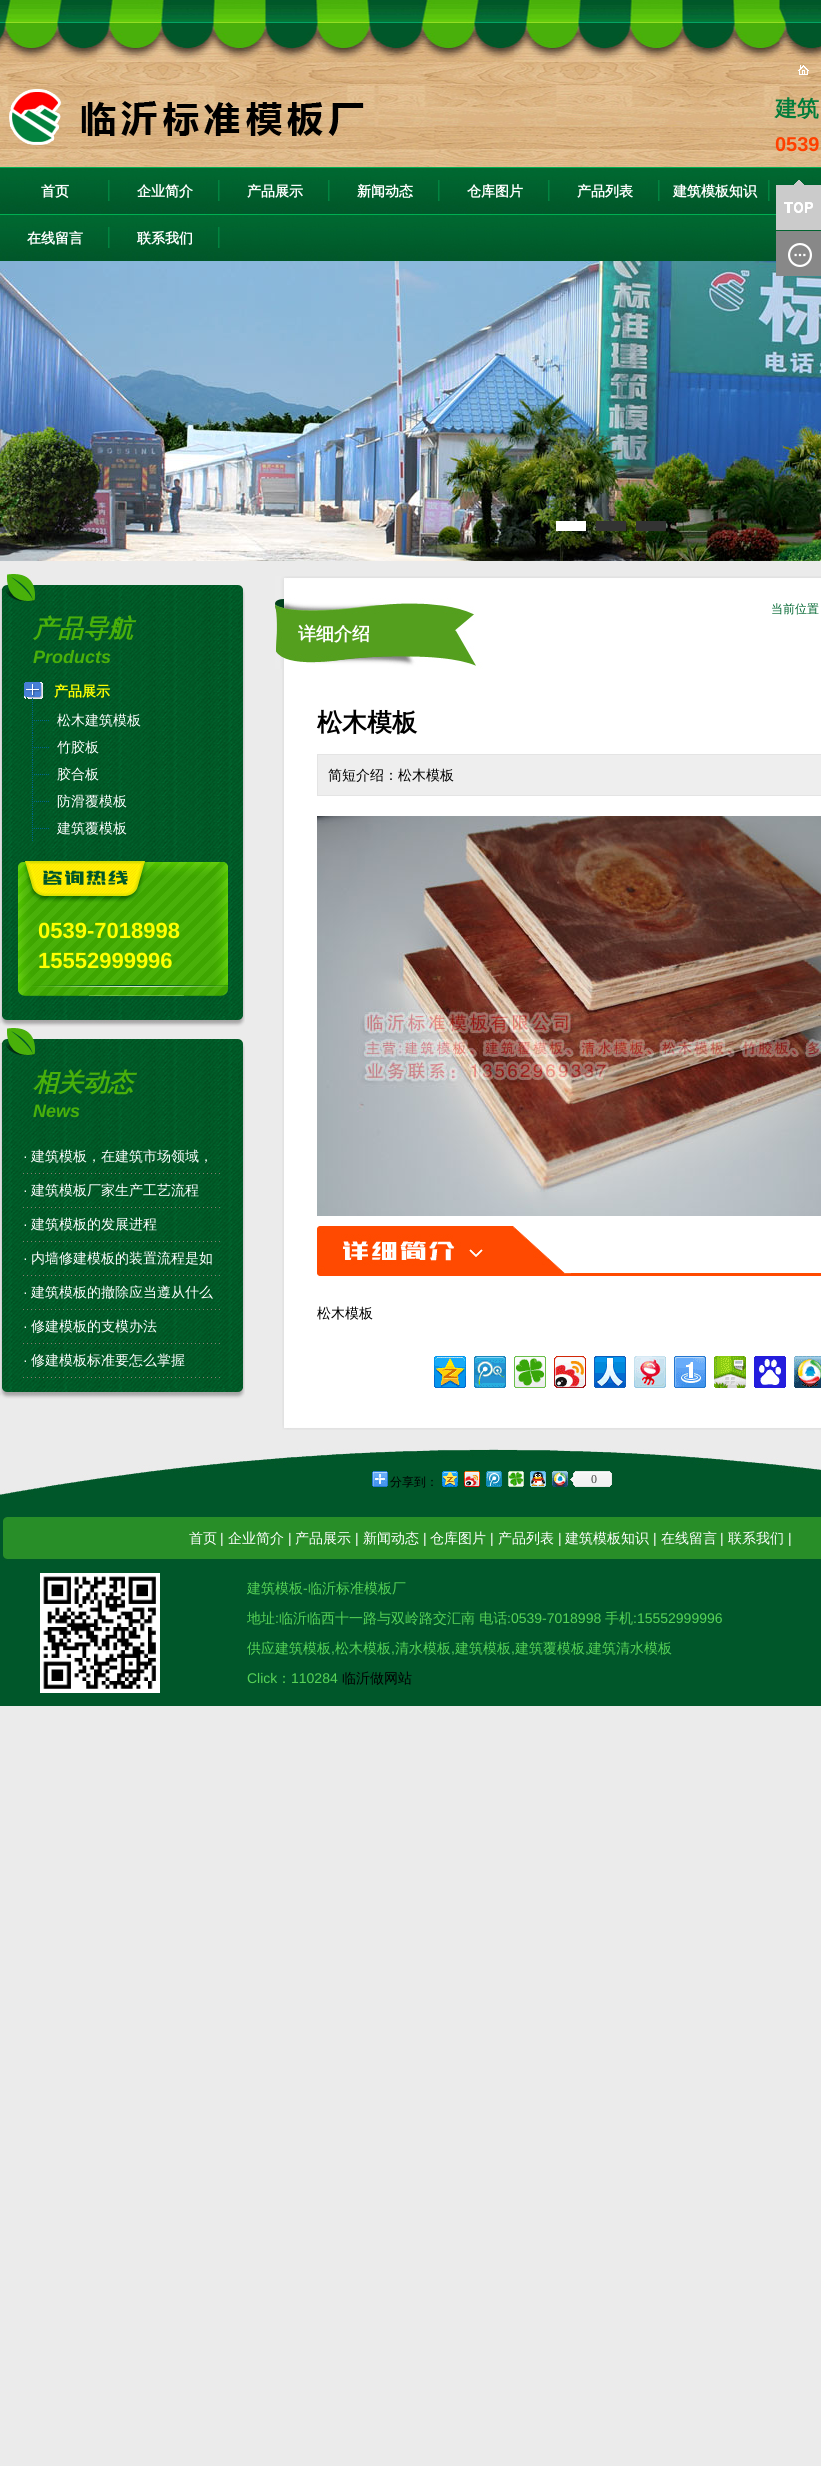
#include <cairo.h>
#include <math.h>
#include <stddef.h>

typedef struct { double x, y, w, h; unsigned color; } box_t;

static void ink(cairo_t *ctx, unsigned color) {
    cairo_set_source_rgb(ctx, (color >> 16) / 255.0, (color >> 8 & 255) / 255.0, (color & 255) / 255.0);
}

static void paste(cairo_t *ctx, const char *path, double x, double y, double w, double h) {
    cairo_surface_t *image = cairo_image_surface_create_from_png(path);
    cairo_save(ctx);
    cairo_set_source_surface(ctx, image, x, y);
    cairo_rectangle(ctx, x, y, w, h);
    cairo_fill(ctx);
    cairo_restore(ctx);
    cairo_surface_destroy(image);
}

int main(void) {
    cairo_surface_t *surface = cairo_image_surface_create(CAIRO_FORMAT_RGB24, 821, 2466);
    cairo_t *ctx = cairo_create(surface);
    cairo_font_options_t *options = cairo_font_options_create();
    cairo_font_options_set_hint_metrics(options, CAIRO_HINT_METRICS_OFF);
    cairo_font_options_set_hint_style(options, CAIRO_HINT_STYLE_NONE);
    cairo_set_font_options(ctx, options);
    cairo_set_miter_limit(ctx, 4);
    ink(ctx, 0xEBEBEB);
    cairo_paint(ctx);
    paste(ctx, "media/1.png", 0, 0, 821, 167);
    paste(ctx, "media/2.png", 9, 89, 355, 56);
    paste(ctx, "media/3.png", 798, 65, 11, 10);
    cairo_select_font_face(ctx, "WenQuanYi Zen Hei", CAIRO_FONT_SLANT_NORMAL, CAIRO_FONT_WEIGHT_BOLD);
    cairo_set_font_size(ctx, 22);
    ink(ctx, 0x027C3B);
    cairo_move_to(ctx, 775, 116);
    cairo_show_text(ctx, "建筑");
    cairo_select_font_face(ctx, "Liberation Sans", CAIRO_FONT_SLANT_NORMAL, CAIRO_FONT_WEIGHT_BOLD);
    cairo_set_font_size(ctx, 20);
    ink(ctx, 0xFF4000);
    cairo_move_to(ctx, 775, 151);
    cairo_show_text(ctx, "0539");
    paste(ctx, "media/4.png", 0, 167, 821, 94);
    paste(ctx, "media/5.png", 108, 180, 2, 21);
    cairo_select_font_face(ctx, "WenQuanYi Zen Hei", CAIRO_FONT_SLANT_NORMAL, CAIRO_FONT_WEIGHT_BOLD);
    cairo_set_font_size(ctx, 14);
    ink(ctx, 0xFFFFFF);
    cairo_move_to(ctx, 41, 196);
    cairo_show_text(ctx, "首页");
    paste(ctx, "media/5.png", 218, 180, 2, 21);
    cairo_move_to(ctx, 137, 196);
    cairo_show_text(ctx, "企业简介");
    paste(ctx, "media/5.png", 328, 180, 2, 21);
    cairo_move_to(ctx, 247, 196);
    cairo_show_text(ctx, "产品展示");
    paste(ctx, "media/5.png", 438, 180, 2, 21);
    cairo_move_to(ctx, 357, 196);
    cairo_show_text(ctx, "新闻动态");
    paste(ctx, "media/5.png", 548, 180, 2, 21);
    cairo_move_to(ctx, 467, 196);
    cairo_show_text(ctx, "仓库图片");
    paste(ctx, "media/5.png", 658, 180, 2, 21);
    cairo_move_to(ctx, 577, 196);
    cairo_show_text(ctx, "产品列表");
    paste(ctx, "media/5.png", 768, 180, 2, 21);
    cairo_move_to(ctx, 673, 196);
    cairo_show_text(ctx, "建筑模板知识");
    paste(ctx, "media/5.png", 108, 227, 2, 21);
    cairo_move_to(ctx, 27, 243);
    cairo_show_text(ctx, "在线留言");
    paste(ctx, "media/5.png", 218, 227, 2, 21);
    cairo_move_to(ctx, 137, 243);
    cairo_show_text(ctx, "联系我们");
    paste(ctx, "media/6.png", 776, 180, 45, 50);
    paste(ctx, "media/8.png", 0, 261, 821, 300);
    paste(ctx, "media/7.png", 776, 231, 45, 45);
    {
        static const box_t items[] = {
            {556, 521, 30, 10, 0xFFFFFF},
            {596, 521, 30, 10, 0x333333},
            {636, 521, 30, 10, 0x333333},
        };
        for (size_t i = 0; i < sizeof items / sizeof *items; i++) {
            ink(ctx, items[i].color);
            cairo_rectangle(ctx, items[i].x, items[i].y, items[i].w, items[i].h);
            cairo_fill(ctx);
        }
    }
    paste(ctx, "media/9.png", 0, 574, 245, 102);
    cairo_select_font_face(ctx, "WenQuanYi Zen Hei", CAIRO_FONT_SLANT_ITALIC, CAIRO_FONT_WEIGHT_BOLD);
    cairo_set_font_size(ctx, 25);
    ink(ctx, 0x49B00A);
    cairo_move_to(ctx, 33, 637);
    cairo_show_text(ctx, "产品导航");
    cairo_select_font_face(ctx, "Liberation Sans", CAIRO_FONT_SLANT_ITALIC, CAIRO_FONT_WEIGHT_BOLD);
    cairo_set_font_size(ctx, 18);
    cairo_move_to(ctx, 33, 663);
    cairo_show_text(ctx, "Products");
    paste(ctx, "media/10.png", 0, 676, 245, 340);
    paste(ctx, "media/11.png", 24, 682, 19, 23);
    cairo_select_font_face(ctx, "WenQuanYi Zen Hei", CAIRO_FONT_SLANT_NORMAL, CAIRO_FONT_WEIGHT_BOLD);
    cairo_set_font_size(ctx, 14);
    ink(ctx, 0xFFFF00);
    cairo_move_to(ctx, 54, 696);
    cairo_show_text(ctx, "产品展示");
    paste(ctx, "media/12.png", 32, 706, 17, 27);
    cairo_select_font_face(ctx, "WenQuanYi Zen Hei Medium", CAIRO_FONT_SLANT_NORMAL, CAIRO_FONT_WEIGHT_NORMAL);
    ink(ctx, 0xFFFFFF);
    cairo_move_to(ctx, 57, 725);
    cairo_show_text(ctx, "松木建筑模板");
    paste(ctx, "media/13.png", 32, 733, 17, 27);
    cairo_move_to(ctx, 57, 752);
    cairo_show_text(ctx, "竹胶板");
    paste(ctx, "media/14.png", 32, 760, 17, 27);
    cairo_move_to(ctx, 57, 779);
    cairo_show_text(ctx, "胶合板");
    paste(ctx, "media/15.png", 32, 787, 17, 27);
    cairo_move_to(ctx, 57, 806);
    cairo_show_text(ctx, "防滑覆模板");
    paste(ctx, "media/16.png", 32, 814, 17, 27);
    cairo_move_to(ctx, 57, 833);
    cairo_show_text(ctx, "建筑覆模板");
    paste(ctx, "media/17.png", 18, 861, 210, 135);
    cairo_select_font_face(ctx, "Liberation Sans", CAIRO_FONT_SLANT_NORMAL, CAIRO_FONT_WEIGHT_BOLD);
    cairo_set_font_size(ctx, 22);
    ink(ctx, 0xFFFF00);
    cairo_move_to(ctx, 38, 938);
    cairo_show_text(ctx, "0539-7018998");
    cairo_move_to(ctx, 38, 968);
    cairo_show_text(ctx, "15552999996");
    paste(ctx, "media/18.png", 0, 1016, 245, 11);
    paste(ctx, "media/9.png", 0, 1028, 245, 102);
    cairo_select_font_face(ctx, "WenQuanYi Zen Hei", CAIRO_FONT_SLANT_ITALIC, CAIRO_FONT_WEIGHT_BOLD);
    cairo_set_font_size(ctx, 25);
    ink(ctx, 0x49B00A);
    cairo_move_to(ctx, 33, 1091);
    cairo_show_text(ctx, "相关动态");
    cairo_select_font_face(ctx, "Liberation Sans", CAIRO_FONT_SLANT_ITALIC, CAIRO_FONT_WEIGHT_BOLD);
    cairo_set_font_size(ctx, 18);
    cairo_move_to(ctx, 33, 1117);
    cairo_show_text(ctx, "News");
    paste(ctx, "media/19.png", 0, 1130, 245, 258);
    cairo_select_font_face(ctx, "Liberation Sans", CAIRO_FONT_SLANT_NORMAL, CAIRO_FONT_WEIGHT_NORMAL);
    cairo_set_font_size(ctx, 14);
    ink(ctx, 0xFFFFFF);
    cairo_move_to(ctx, 23, 1161);
    cairo_show_text(ctx, "·");
    cairo_select_font_face(ctx, "WenQuanYi Zen Hei Medium", CAIRO_FONT_SLANT_NORMAL, CAIRO_FONT_WEIGHT_NORMAL);
    cairo_move_to(ctx, 31, 1161);
    cairo_show_text(ctx, "建筑模板，在建筑市场领域，");
    paste(ctx, "media/20.png", 23, 1173, 197, 1);
    cairo_select_font_face(ctx, "Liberation Sans", CAIRO_FONT_SLANT_NORMAL, CAIRO_FONT_WEIGHT_NORMAL);
    cairo_move_to(ctx, 23, 1195);
    cairo_show_text(ctx, "·");
    cairo_select_font_face(ctx, "WenQuanYi Zen Hei Medium", CAIRO_FONT_SLANT_NORMAL, CAIRO_FONT_WEIGHT_NORMAL);
    cairo_move_to(ctx, 31, 1195);
    cairo_show_text(ctx, "建筑模板厂家生产工艺流程");
    paste(ctx, "media/21.png", 23, 1207, 197, 1);
    cairo_select_font_face(ctx, "Liberation Sans", CAIRO_FONT_SLANT_NORMAL, CAIRO_FONT_WEIGHT_NORMAL);
    cairo_move_to(ctx, 23, 1229);
    cairo_show_text(ctx, "·");
    cairo_select_font_face(ctx, "WenQuanYi Zen Hei Medium", CAIRO_FONT_SLANT_NORMAL, CAIRO_FONT_WEIGHT_NORMAL);
    cairo_move_to(ctx, 31, 1229);
    cairo_show_text(ctx, "建筑模板的发展进程");
    paste(ctx, "media/22.png", 23, 1241, 197, 1);
    cairo_select_font_face(ctx, "Liberation Sans", CAIRO_FONT_SLANT_NORMAL, CAIRO_FONT_WEIGHT_NORMAL);
    cairo_move_to(ctx, 23, 1263);
    cairo_show_text(ctx, "·");
    cairo_select_font_face(ctx, "WenQuanYi Zen Hei Medium", CAIRO_FONT_SLANT_NORMAL, CAIRO_FONT_WEIGHT_NORMAL);
    cairo_move_to(ctx, 31, 1263);
    cairo_show_text(ctx, "内墙修建模板的装置流程是如");
    paste(ctx, "media/23.png", 23, 1275, 197, 1);
    cairo_select_font_face(ctx, "Liberation Sans", CAIRO_FONT_SLANT_NORMAL, CAIRO_FONT_WEIGHT_NORMAL);
    cairo_move_to(ctx, 23, 1297);
    cairo_show_text(ctx, "·");
    cairo_select_font_face(ctx, "WenQuanYi Zen Hei Medium", CAIRO_FONT_SLANT_NORMAL, CAIRO_FONT_WEIGHT_NORMAL);
    cairo_move_to(ctx, 31, 1297);
    cairo_show_text(ctx, "建筑模板的撤除应当遵从什么");
    paste(ctx, "media/24.png", 23, 1309, 197, 1);
    cairo_select_font_face(ctx, "Liberation Sans", CAIRO_FONT_SLANT_NORMAL, CAIRO_FONT_WEIGHT_NORMAL);
    cairo_move_to(ctx, 23, 1331);
    cairo_show_text(ctx, "·");
    cairo_select_font_face(ctx, "WenQuanYi Zen Hei Medium", CAIRO_FONT_SLANT_NORMAL, CAIRO_FONT_WEIGHT_NORMAL);
    cairo_move_to(ctx, 31, 1331);
    cairo_show_text(ctx, "修建模板的支模办法");
    paste(ctx, "media/25.png", 23, 1343, 197, 1);
    cairo_select_font_face(ctx, "Liberation Sans", CAIRO_FONT_SLANT_NORMAL, CAIRO_FONT_WEIGHT_NORMAL);
    cairo_move_to(ctx, 23, 1365);
    cairo_show_text(ctx, "·");
    cairo_select_font_face(ctx, "WenQuanYi Zen Hei Medium", CAIRO_FONT_SLANT_NORMAL, CAIRO_FONT_WEIGHT_NORMAL);
    cairo_move_to(ctx, 31, 1365);
    cairo_show_text(ctx, "修建模板标准要怎么掌握");
    paste(ctx, "media/26.png", 23, 1377, 197, 1);
    paste(ctx, "media/18.png", 0, 1388, 245, 11);
    paste(ctx, "media/27.png", 275, 576, 546, 93);
    cairo_set_font_size(ctx, 12);
    ink(ctx, 0x006630);
    cairo_move_to(ctx, 771, 613);
    cairo_show_text(ctx, "当前位置");
    cairo_select_font_face(ctx, "WenQuanYi Zen Hei", CAIRO_FONT_SLANT_NORMAL, CAIRO_FONT_WEIGHT_BOLD);
    cairo_set_font_size(ctx, 18);
    ink(ctx, 0xFFFFFF);
    cairo_move_to(ctx, 298, 640);
    cairo_show_text(ctx, "详细介绍");
    paste(ctx, "media/28.png", 282, 669, 539, 745);
    cairo_set_font_size(ctx, 25);
    ink(ctx, 0x000000);
    cairo_move_to(ctx, 317, 731);
    cairo_show_text(ctx, "松木模板");
    ink(ctx, 0xE4E4E4);
    cairo_rectangle(ctx, 317, 754, 504, 42);
    cairo_fill(ctx);
    ink(ctx, 0xEEEEEE);
    cairo_rectangle(ctx, 318, 755, 503, 40);
    cairo_fill(ctx);
    cairo_select_font_face(ctx, "WenQuanYi Zen Hei Medium", CAIRO_FONT_SLANT_NORMAL, CAIRO_FONT_WEIGHT_NORMAL);
    cairo_set_font_size(ctx, 14);
    ink(ctx, 0x000000);
    cairo_move_to(ctx, 328, 780);
    cairo_show_text(ctx, "简短介绍：松木模板");
    paste(ctx, "media/29.png", 317, 816, 504, 400);
    paste(ctx, "media/30.png", 317, 1226, 504, 50);
    cairo_move_to(ctx, 317, 1318);
    cairo_show_text(ctx, "松木模板");
    paste(ctx, "media/31.png", 434, 1356, 32, 32);
    paste(ctx, "media/32.png", 474, 1356, 32, 32);
    paste(ctx, "media/33.png", 514, 1356, 32, 32);
    paste(ctx, "media/34.png", 554, 1356, 32, 32);
    paste(ctx, "media/35.png", 594, 1356, 32, 32);
    paste(ctx, "media/36.png", 634, 1356, 32, 32);
    paste(ctx, "media/37.png", 674, 1356, 32, 32);
    paste(ctx, "media/38.png", 714, 1356, 32, 32);
    paste(ctx, "media/39.png", 754, 1356, 32, 32);
    paste(ctx, "media/40.png", 794, 1356, 27, 32);
    paste(ctx, "media/41.png", 282, 1414, 539, 16);
    paste(ctx, "media/42.png", 0, 1449, 821, 257);
    paste(ctx, "media/43.png", 372, 1471, 16, 16);
    cairo_set_font_size(ctx, 12);
    cairo_move_to(ctx, 390, 1486);
    cairo_show_text(ctx, "分享到：");
    paste(ctx, "media/44.png", 442, 1471, 16, 16);
    paste(ctx, "media/45.png", 464, 1471, 16, 16);
    paste(ctx, "media/46.png", 486, 1471, 16, 16);
    paste(ctx, "media/47.png", 508, 1471, 16, 16);
    paste(ctx, "media/48.png", 530, 1471, 16, 16);
    paste(ctx, "media/49.png", 552, 1471, 16, 16);
    paste(ctx, "media/50.png", 570, 1471, 42, 16);
    cairo_select_font_face(ctx, "Liberation Serif", CAIRO_FONT_SLANT_NORMAL, CAIRO_FONT_WEIGHT_NORMAL);
    ink(ctx, 0x454545);
    cairo_move_to(ctx, 591, 1483);
    cairo_show_text(ctx, "0");
    paste(ctx, "media/51.png", 3, 1517, 818, 44);
    cairo_select_font_face(ctx, "WenQuanYi Zen Hei Medium", CAIRO_FONT_SLANT_NORMAL, CAIRO_FONT_WEIGHT_NORMAL);
    cairo_set_font_size(ctx, 14);
    ink(ctx, 0xFFFFFF);
    cairo_move_to(ctx, 189, 1543);
    cairo_show_text(ctx, "首页");
    cairo_select_font_face(ctx, "Liberation Sans", CAIRO_FONT_SLANT_NORMAL, CAIRO_FONT_WEIGHT_NORMAL);
    cairo_move_to(ctx, 220, 1543);
    cairo_show_text(ctx, "|");
    cairo_select_font_face(ctx, "WenQuanYi Zen Hei Medium", CAIRO_FONT_SLANT_NORMAL, CAIRO_FONT_WEIGHT_NORMAL);
    cairo_move_to(ctx, 228, 1543);
    cairo_show_text(ctx, "企业简介");
    cairo_select_font_face(ctx, "Liberation Sans", CAIRO_FONT_SLANT_NORMAL, CAIRO_FONT_WEIGHT_NORMAL);
    cairo_move_to(ctx, 288, 1543);
    cairo_show_text(ctx, "|");
    cairo_select_font_face(ctx, "WenQuanYi Zen Hei Medium", CAIRO_FONT_SLANT_NORMAL, CAIRO_FONT_WEIGHT_NORMAL);
    cairo_move_to(ctx, 295, 1543);
    cairo_show_text(ctx, "产品展示");
    cairo_select_font_face(ctx, "Liberation Sans", CAIRO_FONT_SLANT_NORMAL, CAIRO_FONT_WEIGHT_NORMAL);
    cairo_move_to(ctx, 355, 1543);
    cairo_show_text(ctx, "|");
    cairo_select_font_face(ctx, "WenQuanYi Zen Hei Medium", CAIRO_FONT_SLANT_NORMAL, CAIRO_FONT_WEIGHT_NORMAL);
    cairo_move_to(ctx, 363, 1543);
    cairo_show_text(ctx, "新闻动态");
    cairo_select_font_face(ctx, "Liberation Sans", CAIRO_FONT_SLANT_NORMAL, CAIRO_FONT_WEIGHT_NORMAL);
    cairo_move_to(ctx, 423, 1543);
    cairo_show_text(ctx, "|");
    cairo_select_font_face(ctx, "WenQuanYi Zen Hei Medium", CAIRO_FONT_SLANT_NORMAL, CAIRO_FONT_WEIGHT_NORMAL);
    cairo_move_to(ctx, 430, 1543);
    cairo_show_text(ctx, "仓库图片");
    cairo_select_font_face(ctx, "Liberation Sans", CAIRO_FONT_SLANT_NORMAL, CAIRO_FONT_WEIGHT_NORMAL);
    cairo_move_to(ctx, 490, 1543);
    cairo_show_text(ctx, "|");
    cairo_select_font_face(ctx, "WenQuanYi Zen Hei Medium", CAIRO_FONT_SLANT_NORMAL, CAIRO_FONT_WEIGHT_NORMAL);
    cairo_move_to(ctx, 498, 1543);
    cairo_show_text(ctx, "产品列表");
    cairo_select_font_face(ctx, "Liberation Sans", CAIRO_FONT_SLANT_NORMAL, CAIRO_FONT_WEIGHT_NORMAL);
    cairo_move_to(ctx, 558, 1543);
    cairo_show_text(ctx, "|");
    cairo_select_font_face(ctx, "WenQuanYi Zen Hei Medium", CAIRO_FONT_SLANT_NORMAL, CAIRO_FONT_WEIGHT_NORMAL);
    cairo_move_to(ctx, 565, 1543);
    cairo_show_text(ctx, "建筑模板知识");
    cairo_select_font_face(ctx, "Liberation Sans", CAIRO_FONT_SLANT_NORMAL, CAIRO_FONT_WEIGHT_NORMAL);
    cairo_move_to(ctx, 653, 1543);
    cairo_show_text(ctx, "|");
    cairo_select_font_face(ctx, "WenQuanYi Zen Hei Medium", CAIRO_FONT_SLANT_NORMAL, CAIRO_FONT_WEIGHT_NORMAL);
    cairo_move_to(ctx, 661, 1543);
    cairo_show_text(ctx, "在线留言");
    cairo_select_font_face(ctx, "Liberation Sans", CAIRO_FONT_SLANT_NORMAL, CAIRO_FONT_WEIGHT_NORMAL);
    cairo_move_to(ctx, 720, 1543);
    cairo_show_text(ctx, "|");
    cairo_select_font_face(ctx, "WenQuanYi Zen Hei Medium", CAIRO_FONT_SLANT_NORMAL, CAIRO_FONT_WEIGHT_NORMAL);
    cairo_move_to(ctx, 728, 1543);
    cairo_show_text(ctx, "联系我们");
    cairo_select_font_face(ctx, "Liberation Sans", CAIRO_FONT_SLANT_NORMAL, CAIRO_FONT_WEIGHT_NORMAL);
    cairo_move_to(ctx, 788, 1543);
    cairo_show_text(ctx, "|");
    paste(ctx, "media/52.png", 40, 1573, 120, 120);
    cairo_select_font_face(ctx, "WenQuanYi Zen Hei Medium", CAIRO_FONT_SLANT_NORMAL, CAIRO_FONT_WEIGHT_NORMAL);
    ink(ctx, 0x56D356);
    cairo_move_to(ctx, 247, 1593);
    cairo_show_text(ctx, "建筑模板");
    cairo_select_font_face(ctx, "Liberation Sans", CAIRO_FONT_SLANT_NORMAL, CAIRO_FONT_WEIGHT_NORMAL);
    cairo_move_to(ctx, 303, 1593);
    cairo_show_text(ctx, "-");
    cairo_select_font_face(ctx, "WenQuanYi Zen Hei Medium", CAIRO_FONT_SLANT_NORMAL, CAIRO_FONT_WEIGHT_NORMAL);
    cairo_move_to(ctx, 308, 1593);
    cairo_show_text(ctx, "临沂标准模板厂");
    cairo_move_to(ctx, 247, 1623);
    cairo_show_text(ctx, "地址");
    cairo_select_font_face(ctx, "Liberation Sans", CAIRO_FONT_SLANT_NORMAL, CAIRO_FONT_WEIGHT_NORMAL);
    cairo_move_to(ctx, 275, 1623);
    cairo_show_text(ctx, ":");
    cairo_select_font_face(ctx, "WenQuanYi Zen Hei Medium", CAIRO_FONT_SLANT_NORMAL, CAIRO_FONT_WEIGHT_NORMAL);
    cairo_move_to(ctx, 279, 1623);
    cairo_show_text(ctx, "临沂临西十一路与双岭路交汇南 电话");
    cairo_select_font_face(ctx, "Liberation Sans", CAIRO_FONT_SLANT_NORMAL, CAIRO_FONT_WEIGHT_NORMAL);
    cairo_move_to(ctx, 507, 1623);
    cairo_show_text(ctx, ":0539-7018998");
    cairo_select_font_face(ctx, "WenQuanYi Zen Hei Medium", CAIRO_FONT_SLANT_NORMAL, CAIRO_FONT_WEIGHT_NORMAL);
    cairo_move_to(ctx, 605, 1623);
    cairo_show_text(ctx, "手机");
    cairo_select_font_face(ctx, "Liberation Sans", CAIRO_FONT_SLANT_NORMAL, CAIRO_FONT_WEIGHT_NORMAL);
    cairo_move_to(ctx, 633, 1623);
    cairo_show_text(ctx, ":15552999996");
    cairo_select_font_face(ctx, "WenQuanYi Zen Hei Medium", CAIRO_FONT_SLANT_NORMAL, CAIRO_FONT_WEIGHT_NORMAL);
    cairo_move_to(ctx, 247, 1653);
    cairo_show_text(ctx, "供应建筑模板");
    cairo_select_font_face(ctx, "Liberation Sans", CAIRO_FONT_SLANT_NORMAL, CAIRO_FONT_WEIGHT_NORMAL);
    cairo_move_to(ctx, 331, 1653);
    cairo_show_text(ctx, ",");
    cairo_select_font_face(ctx, "WenQuanYi Zen Hei Medium", CAIRO_FONT_SLANT_NORMAL, CAIRO_FONT_WEIGHT_NORMAL);
    cairo_move_to(ctx, 335, 1653);
    cairo_show_text(ctx, "松木模板");
    cairo_select_font_face(ctx, "Liberation Sans", CAIRO_FONT_SLANT_NORMAL, CAIRO_FONT_WEIGHT_NORMAL);
    cairo_move_to(ctx, 391, 1653);
    cairo_show_text(ctx, ",");
    cairo_select_font_face(ctx, "WenQuanYi Zen Hei Medium", CAIRO_FONT_SLANT_NORMAL, CAIRO_FONT_WEIGHT_NORMAL);
    cairo_move_to(ctx, 395, 1653);
    cairo_show_text(ctx, "清水模板");
    cairo_select_font_face(ctx, "Liberation Sans", CAIRO_FONT_SLANT_NORMAL, CAIRO_FONT_WEIGHT_NORMAL);
    cairo_move_to(ctx, 451, 1653);
    cairo_show_text(ctx, ",");
    cairo_select_font_face(ctx, "WenQuanYi Zen Hei Medium", CAIRO_FONT_SLANT_NORMAL, CAIRO_FONT_WEIGHT_NORMAL);
    cairo_move_to(ctx, 455, 1653);
    cairo_show_text(ctx, "建筑模板");
    cairo_select_font_face(ctx, "Liberation Sans", CAIRO_FONT_SLANT_NORMAL, CAIRO_FONT_WEIGHT_NORMAL);
    cairo_move_to(ctx, 511, 1653);
    cairo_show_text(ctx, ",");
    cairo_select_font_face(ctx, "WenQuanYi Zen Hei Medium", CAIRO_FONT_SLANT_NORMAL, CAIRO_FONT_WEIGHT_NORMAL);
    cairo_move_to(ctx, 515, 1653);
    cairo_show_text(ctx, "建筑覆模板");
    cairo_select_font_face(ctx, "Liberation Sans", CAIRO_FONT_SLANT_NORMAL, CAIRO_FONT_WEIGHT_NORMAL);
    cairo_move_to(ctx, 585, 1653);
    cairo_show_text(ctx, ",");
    cairo_select_font_face(ctx, "WenQuanYi Zen Hei Medium", CAIRO_FONT_SLANT_NORMAL, CAIRO_FONT_WEIGHT_NORMAL);
    cairo_move_to(ctx, 588, 1653);
    cairo_show_text(ctx, "建筑清水模板");
    cairo_select_font_face(ctx, "Liberation Sans", CAIRO_FONT_SLANT_NORMAL, CAIRO_FONT_WEIGHT_NORMAL);
    cairo_move_to(ctx, 247, 1683);
    cairo_show_text(ctx, "Click");
    cairo_select_font_face(ctx, "WenQuanYi Zen Hei Medium", CAIRO_FONT_SLANT_NORMAL, CAIRO_FONT_WEIGHT_NORMAL);
    cairo_move_to(ctx, 277, 1683);
    cairo_show_text(ctx, "：");
    cairo_select_font_face(ctx, "Liberation Sans", CAIRO_FONT_SLANT_NORMAL, CAIRO_FONT_WEIGHT_NORMAL);
    cairo_move_to(ctx, 291, 1683);
    cairo_show_text(ctx, "110284");
    cairo_select_font_face(ctx, "WenQuanYi Zen Hei Medium", CAIRO_FONT_SLANT_NORMAL, CAIRO_FONT_WEIGHT_NORMAL);
    ink(ctx, 0x000000);
    cairo_move_to(ctx, 342, 1683);
    cairo_show_text(ctx, "临沂做网站");
    cairo_surface_write_to_png(surface, "image.png");
    cairo_font_options_destroy(options);
    cairo_destroy(ctx);
    cairo_surface_destroy(surface);
    return 0;
}
